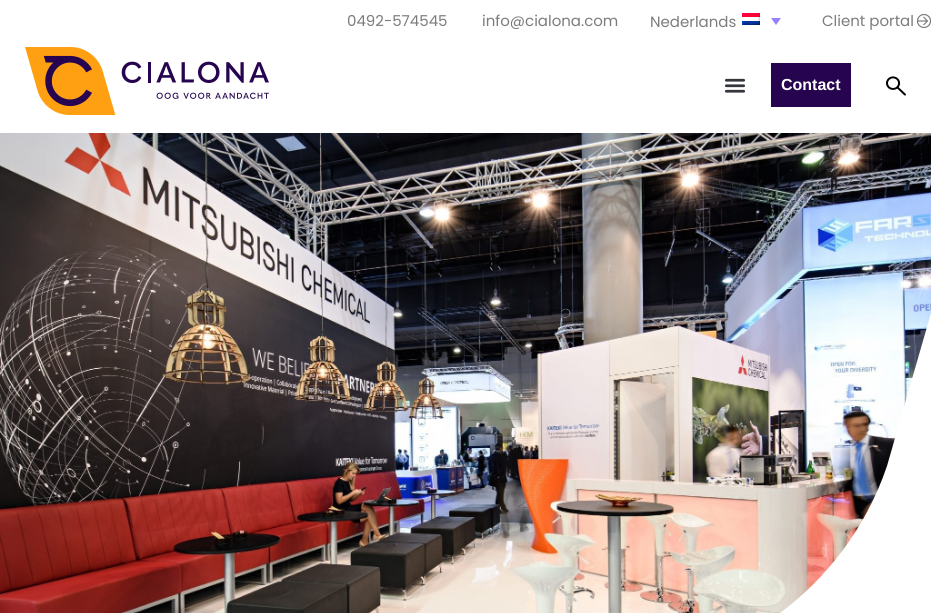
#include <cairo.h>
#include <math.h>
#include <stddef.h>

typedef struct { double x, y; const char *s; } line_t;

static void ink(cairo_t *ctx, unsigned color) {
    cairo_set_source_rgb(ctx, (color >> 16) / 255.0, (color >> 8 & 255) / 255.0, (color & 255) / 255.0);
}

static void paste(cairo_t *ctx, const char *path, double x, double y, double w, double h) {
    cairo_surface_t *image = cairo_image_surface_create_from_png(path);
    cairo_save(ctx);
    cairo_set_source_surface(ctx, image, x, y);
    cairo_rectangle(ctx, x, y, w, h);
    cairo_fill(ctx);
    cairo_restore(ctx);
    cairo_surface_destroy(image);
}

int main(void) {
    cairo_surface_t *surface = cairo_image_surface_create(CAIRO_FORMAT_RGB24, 931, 613);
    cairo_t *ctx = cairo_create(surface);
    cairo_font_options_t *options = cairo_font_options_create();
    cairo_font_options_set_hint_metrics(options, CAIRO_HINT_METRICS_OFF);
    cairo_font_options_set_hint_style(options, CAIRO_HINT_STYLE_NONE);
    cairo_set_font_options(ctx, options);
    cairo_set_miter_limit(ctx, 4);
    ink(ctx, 0xFFFFFF);
    cairo_paint(ctx);
    cairo_select_font_face(ctx, "Poppins", CAIRO_FONT_SLANT_NORMAL, CAIRO_FONT_WEIGHT_NORMAL);
    cairo_set_font_size(ctx, 15);
    ink(ctx, 0x7C7C7C);
    {
        static const line_t items[] = {
            {347, 26, "0492-574545"},
            {482, 26, "info@cialona.com"},
            {650, 27, "Nederlands"},
        };
        for (size_t i = 0; i < sizeof items / sizeof *items; i++) {
            cairo_move_to(ctx, items[i].x, items[i].y);
            cairo_show_text(ctx, items[i].s);
        }
    }
    paste(ctx, "media/1.png", 742, 13, 18, 12);
    ink(ctx, 0x9381FF);
    cairo_new_path(ctx);
    cairo_move_to(ctx, 771, 18);
    cairo_line_to(ctx, 781, 18);
    cairo_line_to(ctx, 776, 25);
    cairo_close_path(ctx);
    cairo_fill(ctx);
    ink(ctx, 0x7C7C7C);
    cairo_move_to(ctx, 822, 26);
    cairo_show_text(ctx, "Client portal");
    paste(ctx, "media/2.png", 917, 14, 14, 14);
    paste(ctx, "media/3.png", 25, 47, 244, 68);
    paste(ctx, "media/4.png", 724, 78, 22, 15);
    ink(ctx, 0x26044F);
    cairo_rectangle(ctx, 771, 63, 80, 44);
    cairo_fill(ctx);
    cairo_select_font_face(ctx, "Liberation Sans", CAIRO_FONT_SLANT_NORMAL, CAIRO_FONT_WEIGHT_BOLD);
    cairo_set_font_size(ctx, 16);
    ink(ctx, 0xFFFFFF);
    cairo_move_to(ctx, 781, 90);
    cairo_show_text(ctx, "Contact");
    paste(ctx, "media/5.png", 886, 76, 20, 20);
    paste(ctx, "media/6.png", 0, 133, 931, 480);
    cairo_new_path(ctx);
    cairo_move_to(ctx, 887, 466);
    cairo_line_to(ctx, 931, 313);
    cairo_line_to(ctx, 931, 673);
    cairo_line_to(ctx, 596, 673);
    cairo_curve_to(ctx, 727, 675, 845, 590, 887, 466);
    cairo_fill(ctx);
    cairo_surface_write_to_png(surface, "image.png");
    cairo_font_options_destroy(options);
    cairo_destroy(ctx);
    cairo_surface_destroy(surface);
    return 0;
}
